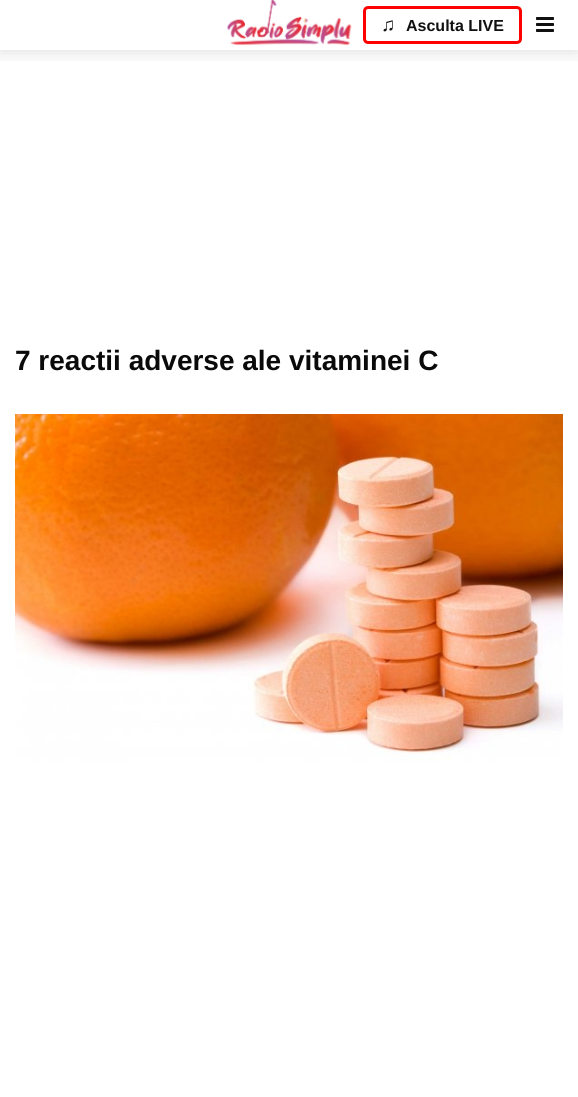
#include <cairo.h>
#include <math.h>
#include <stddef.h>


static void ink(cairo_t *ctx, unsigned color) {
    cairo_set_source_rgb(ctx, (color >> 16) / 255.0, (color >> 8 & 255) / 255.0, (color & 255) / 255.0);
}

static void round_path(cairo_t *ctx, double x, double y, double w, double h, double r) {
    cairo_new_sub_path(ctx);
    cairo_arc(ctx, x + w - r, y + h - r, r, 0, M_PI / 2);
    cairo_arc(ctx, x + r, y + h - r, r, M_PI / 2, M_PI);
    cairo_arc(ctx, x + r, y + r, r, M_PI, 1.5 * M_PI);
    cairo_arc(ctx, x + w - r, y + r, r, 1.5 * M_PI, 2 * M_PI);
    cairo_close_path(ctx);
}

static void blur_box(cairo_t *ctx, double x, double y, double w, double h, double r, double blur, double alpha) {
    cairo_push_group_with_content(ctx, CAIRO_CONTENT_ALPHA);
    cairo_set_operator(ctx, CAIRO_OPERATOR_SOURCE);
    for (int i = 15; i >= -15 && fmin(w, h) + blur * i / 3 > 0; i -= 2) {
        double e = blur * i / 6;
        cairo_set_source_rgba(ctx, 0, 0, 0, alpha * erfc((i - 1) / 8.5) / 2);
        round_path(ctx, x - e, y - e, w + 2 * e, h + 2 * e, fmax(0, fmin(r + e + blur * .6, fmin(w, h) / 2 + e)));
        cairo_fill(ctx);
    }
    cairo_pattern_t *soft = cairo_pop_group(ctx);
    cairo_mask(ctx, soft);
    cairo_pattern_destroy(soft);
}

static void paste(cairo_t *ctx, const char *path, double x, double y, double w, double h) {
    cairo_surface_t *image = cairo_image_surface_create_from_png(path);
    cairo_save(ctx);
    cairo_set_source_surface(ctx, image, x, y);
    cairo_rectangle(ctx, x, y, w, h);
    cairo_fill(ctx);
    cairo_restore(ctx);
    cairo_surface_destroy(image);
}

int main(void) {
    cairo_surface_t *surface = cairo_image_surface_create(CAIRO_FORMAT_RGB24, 578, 1097);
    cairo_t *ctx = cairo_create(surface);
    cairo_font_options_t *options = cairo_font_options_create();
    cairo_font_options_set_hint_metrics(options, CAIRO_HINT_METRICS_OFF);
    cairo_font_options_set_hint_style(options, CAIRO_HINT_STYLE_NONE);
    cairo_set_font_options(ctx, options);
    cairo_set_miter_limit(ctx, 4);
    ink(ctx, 0xFFFFFF);
    cairo_paint(ctx);
    cairo_save(ctx);
    cairo_rectangle(ctx, 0, 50, 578, 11);
    cairo_clip(ctx);
    ink(ctx, 0x000000);
    blur_box(ctx, 0, 0, 578, 50, 0, 10, 0.15);
    cairo_restore(ctx);
    paste(ctx, "media/1.png", 227, 0, 125, 46);
    round_path(ctx, 364.5, 7.5, 156, 35, 3.5);
    ink(ctx, 0xFF0000);
    cairo_set_line_width(ctx, 3);
    cairo_stroke(ctx);
    cairo_select_font_face(ctx, "Liberation Sans", CAIRO_FONT_SLANT_NORMAL, CAIRO_FONT_WEIGHT_BOLD);
    cairo_set_font_size(ctx, 19);
    ink(ctx, 0x111111);
    cairo_move_to(ctx, 381, 31);
    cairo_show_text(ctx, "♫");
    cairo_set_font_size(ctx, 16);
    cairo_move_to(ctx, 406, 31);
    cairo_show_text(ctx, "Asculta LIVE");
    paste(ctx, "media/2.png", 536, 17, 18, 15);
    cairo_set_font_size(ctx, 28);
    ink(ctx, 0x0A0A0A);
    cairo_move_to(ctx, 15, 370);
    cairo_show_text(ctx, "7 reactii adverse ale vitaminei C");
    paste(ctx, "media/3.png", 15, 414, 548, 349);
    cairo_surface_write_to_png(surface, "image.png");
    cairo_font_options_destroy(options);
    cairo_destroy(ctx);
    cairo_surface_destroy(surface);
    return 0;
}
